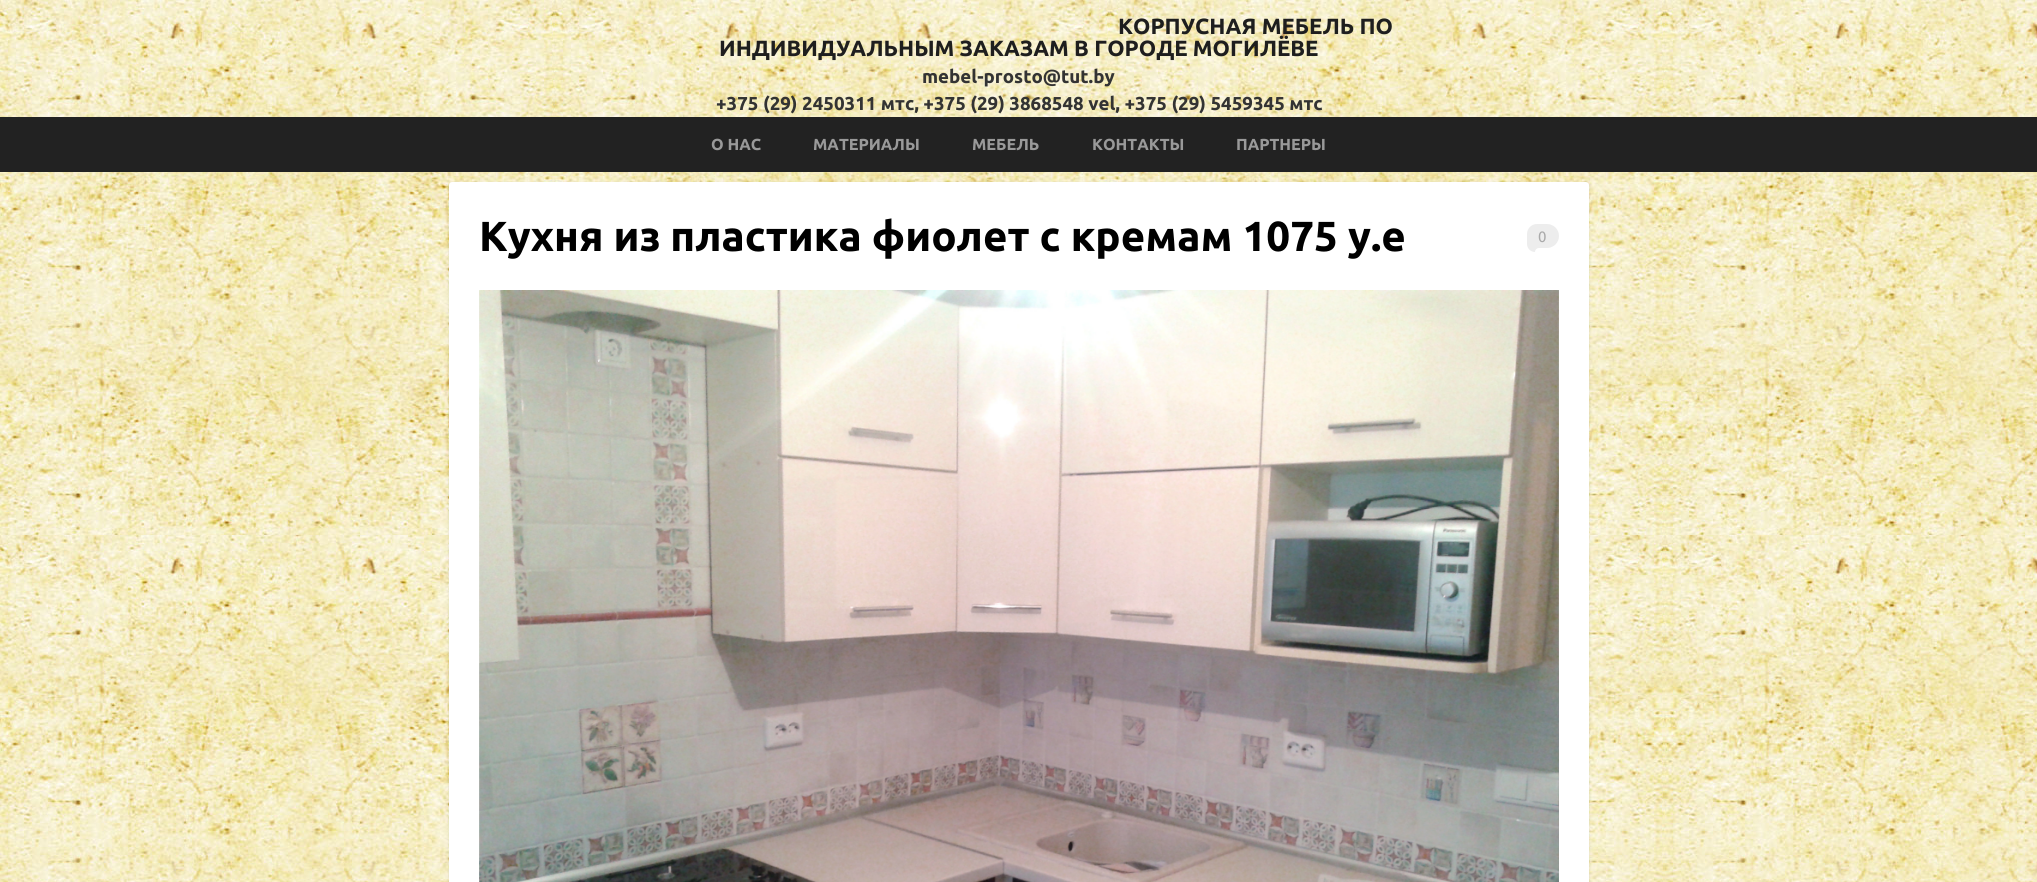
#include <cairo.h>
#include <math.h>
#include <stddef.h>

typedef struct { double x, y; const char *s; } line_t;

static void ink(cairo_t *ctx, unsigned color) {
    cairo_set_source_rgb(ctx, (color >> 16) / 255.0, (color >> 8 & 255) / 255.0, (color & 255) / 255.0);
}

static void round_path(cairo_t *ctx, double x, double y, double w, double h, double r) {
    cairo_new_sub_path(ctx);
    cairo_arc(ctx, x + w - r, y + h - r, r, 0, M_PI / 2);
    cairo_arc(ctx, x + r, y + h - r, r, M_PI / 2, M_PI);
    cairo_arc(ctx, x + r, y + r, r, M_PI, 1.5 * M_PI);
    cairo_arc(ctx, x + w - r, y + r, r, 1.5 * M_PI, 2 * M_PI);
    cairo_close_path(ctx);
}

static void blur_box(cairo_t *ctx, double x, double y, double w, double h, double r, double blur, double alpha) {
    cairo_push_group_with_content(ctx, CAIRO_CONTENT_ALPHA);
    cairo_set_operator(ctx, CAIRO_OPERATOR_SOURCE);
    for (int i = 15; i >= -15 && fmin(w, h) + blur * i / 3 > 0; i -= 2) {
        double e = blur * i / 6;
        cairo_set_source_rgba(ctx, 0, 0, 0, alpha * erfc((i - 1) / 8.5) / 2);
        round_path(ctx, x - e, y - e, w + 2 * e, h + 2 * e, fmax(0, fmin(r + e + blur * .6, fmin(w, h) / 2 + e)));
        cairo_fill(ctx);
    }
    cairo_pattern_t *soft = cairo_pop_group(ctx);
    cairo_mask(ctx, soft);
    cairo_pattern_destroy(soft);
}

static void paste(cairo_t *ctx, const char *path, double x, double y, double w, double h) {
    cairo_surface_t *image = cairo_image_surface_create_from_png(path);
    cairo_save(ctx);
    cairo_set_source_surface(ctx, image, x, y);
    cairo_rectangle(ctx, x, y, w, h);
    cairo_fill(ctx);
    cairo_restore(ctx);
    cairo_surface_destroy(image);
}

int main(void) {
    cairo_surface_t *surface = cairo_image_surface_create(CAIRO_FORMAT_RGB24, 2037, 882);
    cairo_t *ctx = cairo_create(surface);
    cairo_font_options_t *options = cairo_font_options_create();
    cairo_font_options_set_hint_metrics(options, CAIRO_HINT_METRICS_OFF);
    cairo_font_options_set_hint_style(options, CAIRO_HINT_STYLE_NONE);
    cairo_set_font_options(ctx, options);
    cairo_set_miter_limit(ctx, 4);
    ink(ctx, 0xFFFFFF);
    cairo_paint(ctx);
    paste(ctx, "media/1.png", 0, 0, 2037, 882);
    cairo_select_font_face(ctx, "Ubuntu", CAIRO_FONT_SLANT_NORMAL, CAIRO_FONT_WEIGHT_BOLD);
    cairo_set_font_size(ctx, 22);
    ink(ctx, 0x1E1E1E);
    cairo_move_to(ctx, 1118, 34);
    cairo_show_text(ctx, "КОРПУСНАЯ МЕБЕЛЬ ПО");
    cairo_move_to(ctx, 719, 56);
    cairo_show_text(ctx, "ИНДИВИДУАЛЬНЫМ ЗАКАЗАМ В ГОРОДЕ МОГИЛЁВЕ");
    cairo_set_font_size(ctx, 18.7);
    ink(ctx, 0x333333);
    cairo_move_to(ctx, 922, 83);
    cairo_show_text(ctx, "mebel-prosto@tut.by");
    cairo_move_to(ctx, 716, 110);
    cairo_show_text(ctx, "+375 (29) 2450311 мтс, +375 (29) 3868548 vel, +375 (29) 5459345 мтс");
    ink(ctx, 0x222222);
    cairo_rectangle(ctx, 0, 117, 2037, 55);
    cairo_fill(ctx);
    cairo_set_font_size(ctx, 16);
    ink(ctx, 0x999999);
    {
        static const line_t items[] = {
            {711, 150, "О НАС"},
            {813, 150, "МАТЕРИАЛЫ"},
            {972, 150, "МЕБЕЛЬ"},
            {1092, 150, "КОНТАКТЫ"},
            {1236, 150, "ПАРТНЕРЫ"},
        };
        for (size_t i = 0; i < sizeof items / sizeof *items; i++) {
            cairo_move_to(ctx, items[i].x, items[i].y);
            cairo_show_text(ctx, items[i].s);
        }
    }
    ink(ctx, 0x000000);
    blur_box(ctx, 449, 183, 1140, 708, 3, 2, 0.1);
    ink(ctx, 0xFFFFFF);
    round_path(ctx, 449, 182, 1140, 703, 3);
    cairo_fill(ctx);
    cairo_set_font_size(ctx, 42);
    ink(ctx, 0x000000);
    cairo_move_to(ctx, 479, 251);
    cairo_show_text(ctx, "Кухня из пластика фиолет с кремам 1075 у.е");
    paste(ctx, "media/2.png", 1527, 224, 32, 28);
    cairo_select_font_face(ctx, "Ubuntu", CAIRO_FONT_SLANT_NORMAL, CAIRO_FONT_WEIGHT_NORMAL);
    cairo_set_font_size(ctx, 15);
    ink(ctx, 0xAAAAAA);
    cairo_move_to(ctx, 1538, 242);
    cairo_show_text(ctx, "0");
    paste(ctx, "media/3.png", 479, 290, 1080, 592);
    paste(ctx, "media/4.png", 1558, 314, 1, 568);
    cairo_surface_write_to_png(surface, "image.png");
    cairo_font_options_destroy(options);
    cairo_destroy(ctx);
    cairo_surface_destroy(surface);
    return 0;
}
